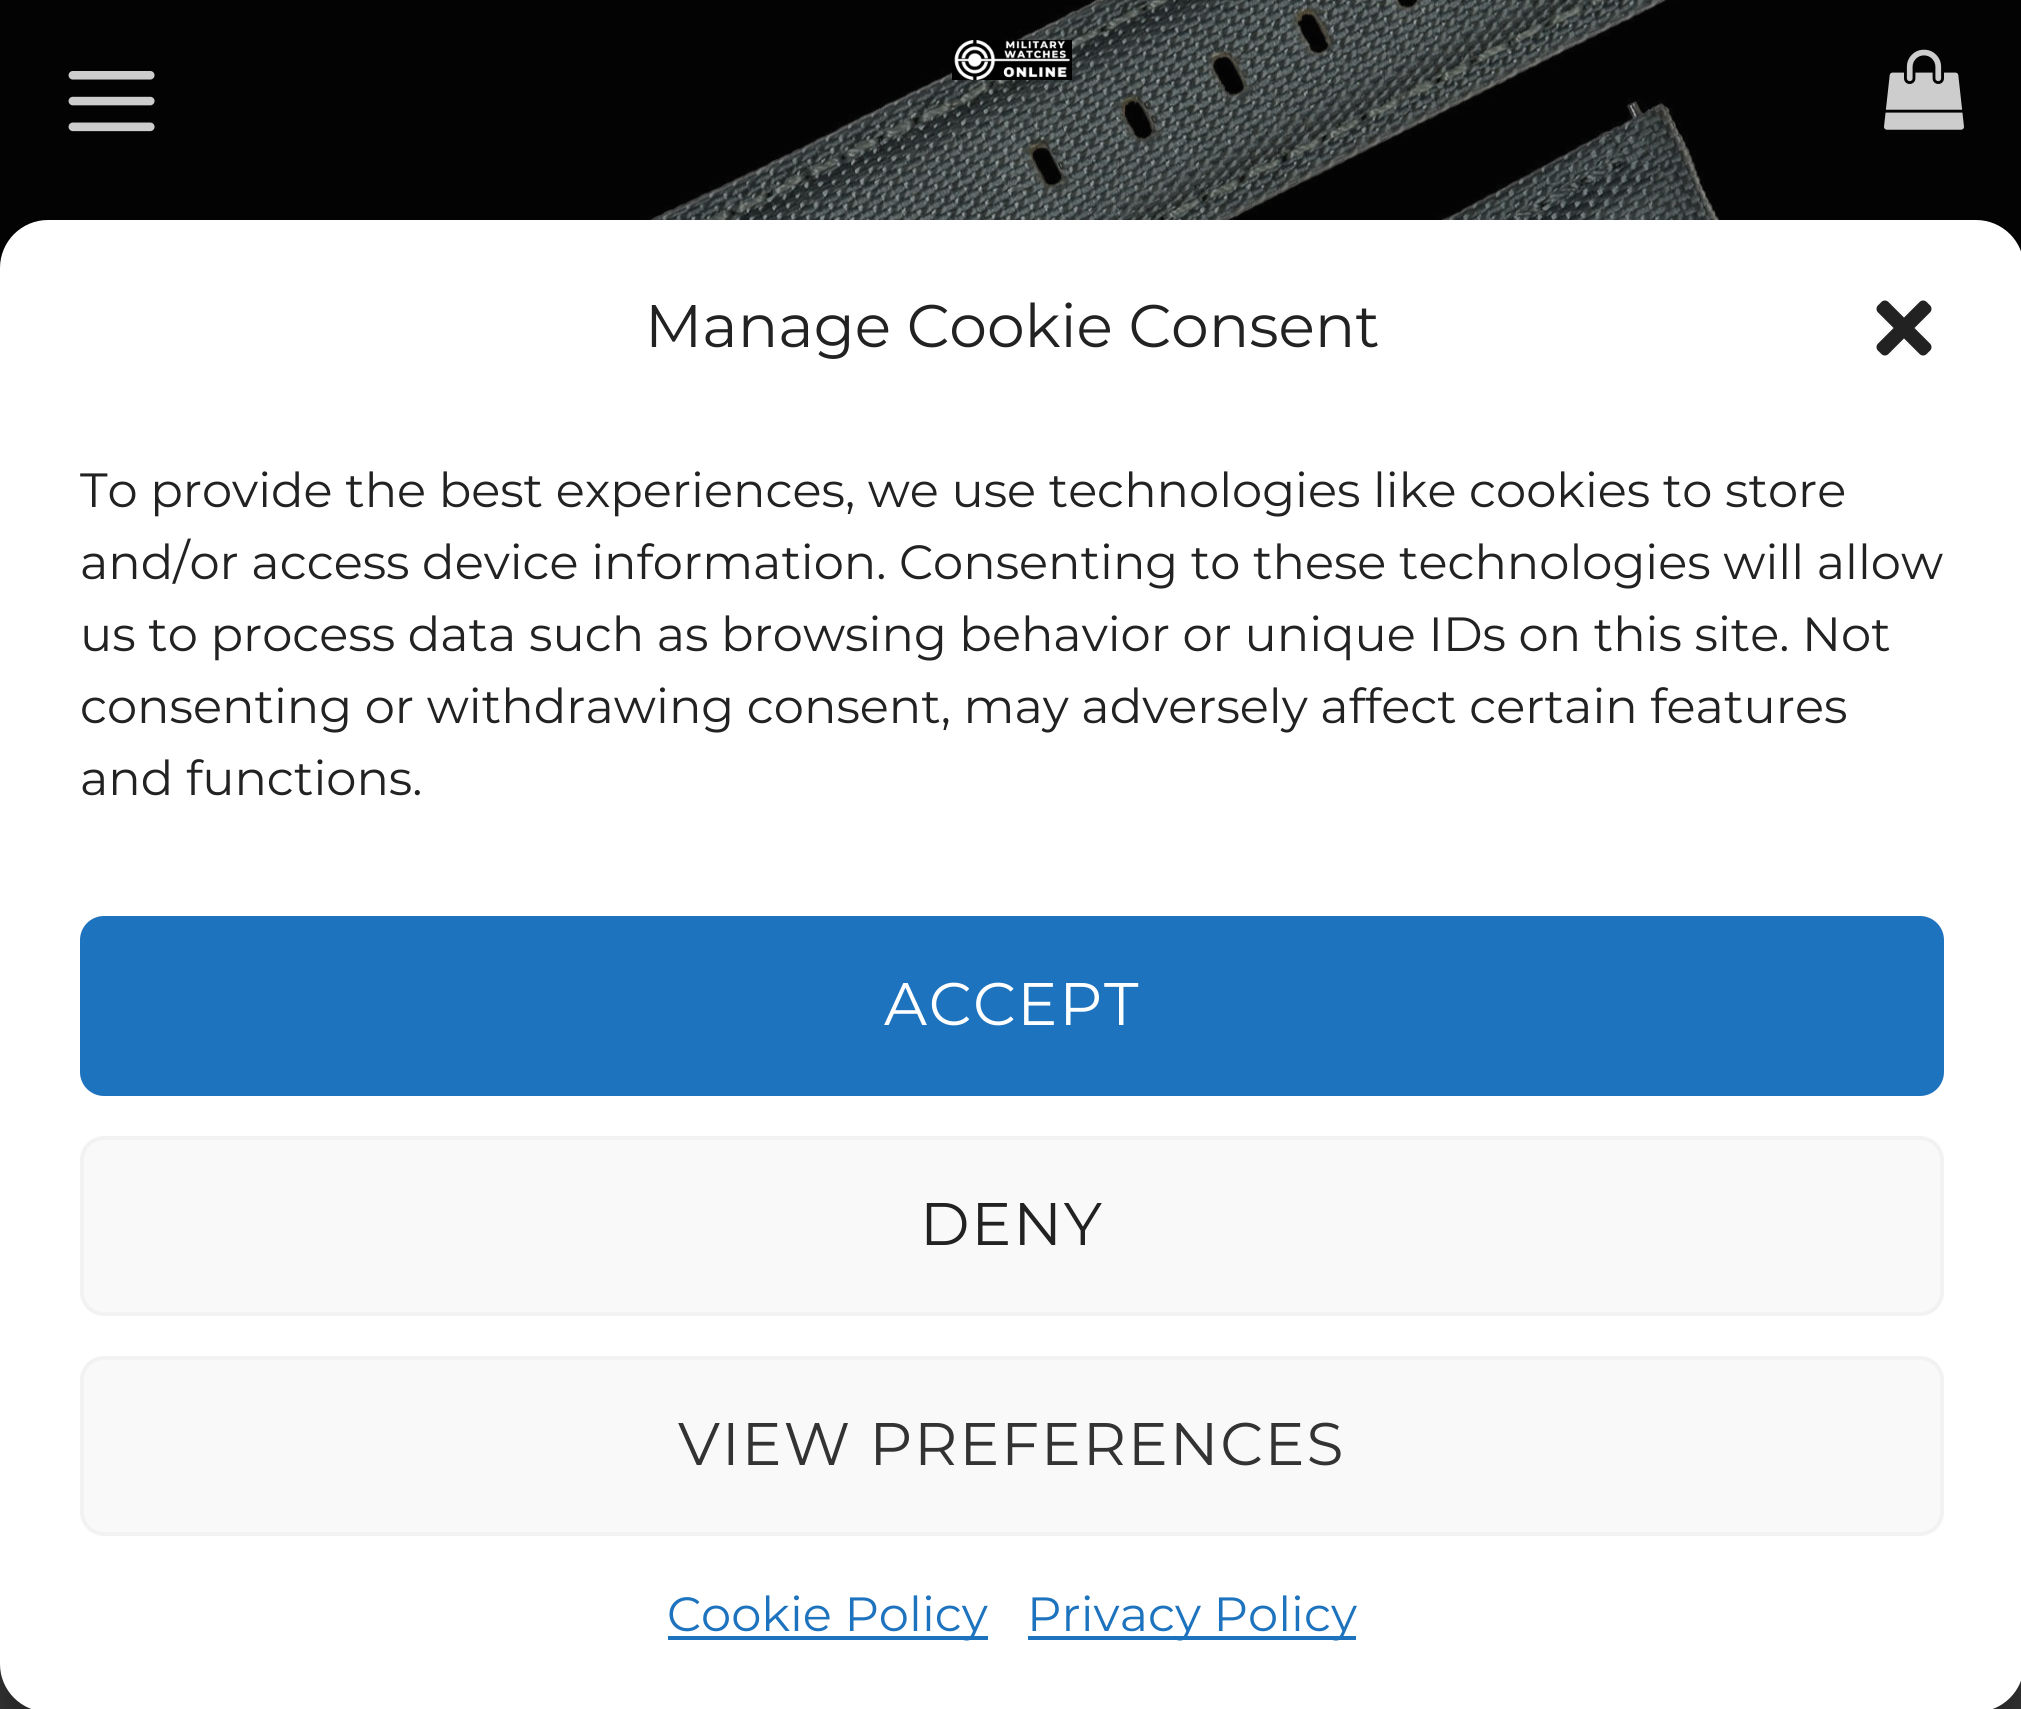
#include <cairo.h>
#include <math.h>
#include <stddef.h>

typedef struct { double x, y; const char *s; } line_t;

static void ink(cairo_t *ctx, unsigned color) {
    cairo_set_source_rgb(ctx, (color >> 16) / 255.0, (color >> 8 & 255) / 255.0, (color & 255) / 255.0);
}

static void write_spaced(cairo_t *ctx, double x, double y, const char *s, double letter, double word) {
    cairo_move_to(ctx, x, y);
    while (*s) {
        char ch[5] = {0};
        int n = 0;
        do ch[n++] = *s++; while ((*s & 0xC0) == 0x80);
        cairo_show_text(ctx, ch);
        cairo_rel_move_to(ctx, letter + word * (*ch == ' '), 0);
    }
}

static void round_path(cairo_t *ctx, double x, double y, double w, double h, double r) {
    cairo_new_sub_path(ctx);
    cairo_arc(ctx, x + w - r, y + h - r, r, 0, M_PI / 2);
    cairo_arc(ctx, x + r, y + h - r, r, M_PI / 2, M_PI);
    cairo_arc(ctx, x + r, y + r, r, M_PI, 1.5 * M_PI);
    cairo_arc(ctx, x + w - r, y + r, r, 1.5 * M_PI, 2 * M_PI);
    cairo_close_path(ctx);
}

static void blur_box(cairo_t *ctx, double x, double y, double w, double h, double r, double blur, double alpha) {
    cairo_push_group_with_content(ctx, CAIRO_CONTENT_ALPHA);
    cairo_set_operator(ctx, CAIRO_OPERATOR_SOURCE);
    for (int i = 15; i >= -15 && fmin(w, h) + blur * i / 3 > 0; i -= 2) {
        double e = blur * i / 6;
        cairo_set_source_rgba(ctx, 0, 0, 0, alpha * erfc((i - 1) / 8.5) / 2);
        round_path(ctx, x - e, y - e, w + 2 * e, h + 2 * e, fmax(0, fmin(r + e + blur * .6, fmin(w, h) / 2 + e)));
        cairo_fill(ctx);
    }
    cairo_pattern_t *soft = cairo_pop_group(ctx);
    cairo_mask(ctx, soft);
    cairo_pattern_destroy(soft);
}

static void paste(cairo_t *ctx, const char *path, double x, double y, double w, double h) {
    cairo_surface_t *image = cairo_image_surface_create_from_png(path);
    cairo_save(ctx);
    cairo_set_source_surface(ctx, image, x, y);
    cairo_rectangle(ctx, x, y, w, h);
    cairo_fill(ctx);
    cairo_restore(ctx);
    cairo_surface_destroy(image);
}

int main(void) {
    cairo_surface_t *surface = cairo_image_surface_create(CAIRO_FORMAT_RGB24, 2021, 1709);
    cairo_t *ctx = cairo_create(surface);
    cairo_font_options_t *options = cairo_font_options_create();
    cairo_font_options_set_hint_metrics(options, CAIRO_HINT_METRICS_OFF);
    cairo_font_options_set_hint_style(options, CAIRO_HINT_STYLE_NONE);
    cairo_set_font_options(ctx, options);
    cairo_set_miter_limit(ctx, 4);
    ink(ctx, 0x030303);
    cairo_paint(ctx);
    paste(ctx, "media/1.png", 201, 0, 1593, 220);
    paste(ctx, "media/2.png", 68, 71, 87, 61);
    paste(ctx, "media/3.png", 952, 40, 120, 40);
    paste(ctx, "media/4.png", 1884, 49, 80, 81);
    ink(ctx, 0x333333);
    cairo_rectangle(ctx, 0, 1664, 2021, 45);
    cairo_fill(ctx);
    ink(ctx, 0x000000);
    blur_box(ctx, 0, 244, 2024, 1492, 48, 12, 0.23);
    ink(ctx, 0xFFFFFF);
    round_path(ctx, 0, 220, 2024, 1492, 48);
    cairo_fill(ctx);
    cairo_select_font_face(ctx, "Montserrat Thin", CAIRO_FONT_SLANT_NORMAL, CAIRO_FONT_WEIGHT_NORMAL);
    cairo_set_font_size(ctx, 60);
    ink(ctx, 0x222222);
    cairo_move_to(ctx, 645, 347);
    cairo_show_text(ctx, "Manage Cookie Consent");
    paste(ctx, "media/5.png", 1876, 300, 56, 56);
    cairo_set_font_size(ctx, 48);
    {
        static const line_t items[] = {
            {80, 507, "To provide the best experiences, we use technologies like cookies to store"},
            {80, 579, "and/or access device information. Consenting to these technologies will allow"},
            {80, 651, "us to process data such as browsing behavior or unique IDs on this site. Not"},
            {80, 723, "consenting or withdrawing consent, may adversely affect certain features"},
            {80, 795, "and functions."},
        };
        for (size_t i = 0; i < sizeof items / sizeof *items; i++) {
            cairo_move_to(ctx, items[i].x, items[i].y);
            cairo_show_text(ctx, items[i].s);
        }
    }
    ink(ctx, 0x1E73BE);
    round_path(ctx, 82, 918, 1860, 176, 22);
    cairo_fill_preserve(ctx);
    cairo_set_line_width(ctx, 4);
    cairo_stroke(ctx);
    cairo_set_font_size(ctx, 60);
    ink(ctx, 0xFFFFFF);
    write_spaced(ctx, 884, 1025, "ACCEPT", 1.75, 0);
    ink(ctx, 0xF9F9F9);
    round_path(ctx, 82, 1138, 1860, 176, 22);
    cairo_fill_preserve(ctx);
    ink(ctx, 0xF2F2F2);
    cairo_stroke(ctx);
    ink(ctx, 0x222222);
    write_spaced(ctx, 920, 1245, "DENY", 1.75, 0);
    ink(ctx, 0xF9F9F9);
    round_path(ctx, 82, 1358, 1860, 176, 22);
    cairo_fill_preserve(ctx);
    ink(ctx, 0xF2F2F2);
    cairo_stroke(ctx);
    ink(ctx, 0x333333);
    write_spaced(ctx, 678, 1465, "VIEW PREFERENCES", 1.75, 0);
    ink(ctx, 0x1E73BE);
    cairo_rectangle(ctx, 668, 1636, 320, 4);
    cairo_fill(ctx);
    cairo_set_font_size(ctx, 48);
    cairo_move_to(ctx, 667, 1631);
    cairo_show_text(ctx, "Cookie Policy");
    cairo_rectangle(ctx, 1028, 1636, 328, 4);
    cairo_fill(ctx);
    cairo_move_to(ctx, 1027, 1631);
    cairo_show_text(ctx, "Privacy Policy");
    cairo_surface_write_to_png(surface, "image.png");
    cairo_font_options_destroy(options);
    cairo_destroy(ctx);
    cairo_surface_destroy(surface);
    return 0;
}
